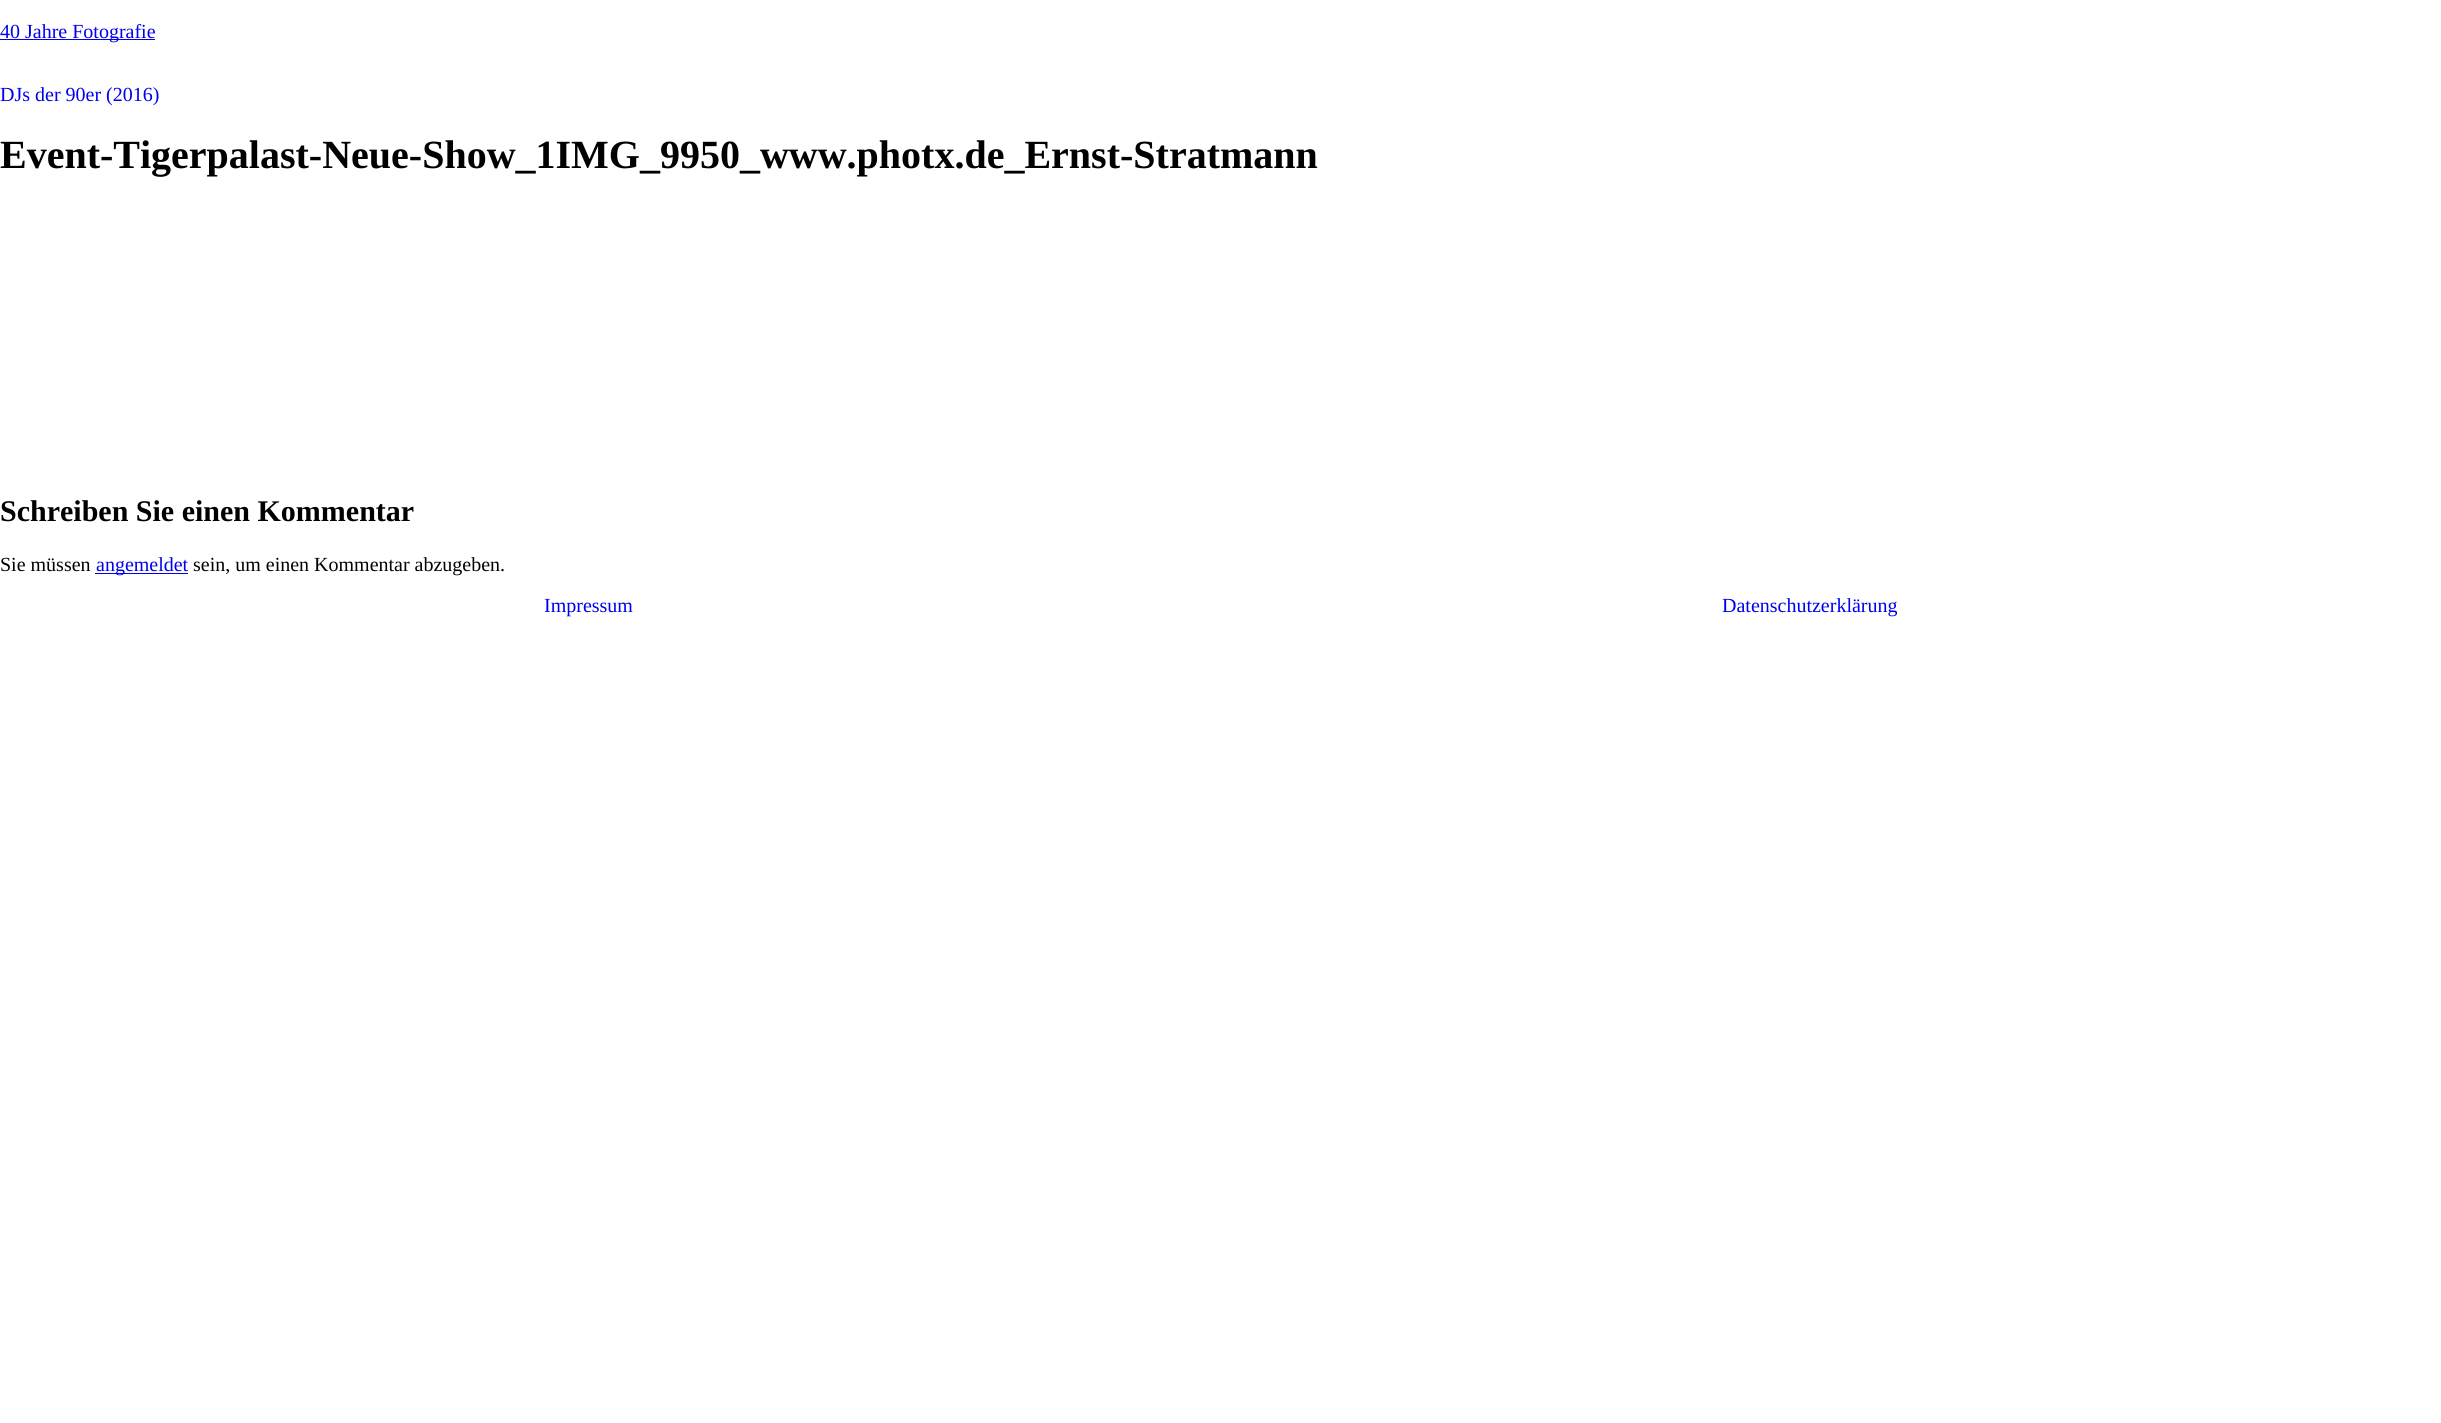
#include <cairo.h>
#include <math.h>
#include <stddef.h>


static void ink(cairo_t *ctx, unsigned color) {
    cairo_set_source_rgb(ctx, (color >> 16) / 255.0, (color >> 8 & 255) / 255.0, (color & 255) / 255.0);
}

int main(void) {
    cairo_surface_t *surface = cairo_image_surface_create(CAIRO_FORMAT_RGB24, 2441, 1423);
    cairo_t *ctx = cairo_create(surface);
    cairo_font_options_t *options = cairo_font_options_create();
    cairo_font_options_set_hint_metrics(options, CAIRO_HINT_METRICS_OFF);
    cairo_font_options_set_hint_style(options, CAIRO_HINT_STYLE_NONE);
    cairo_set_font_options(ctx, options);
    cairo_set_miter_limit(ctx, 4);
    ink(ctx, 0xFFFFFF);
    cairo_paint(ctx);
    ink(ctx, 0x0000EE);
    cairo_rectangle(ctx, 0, 39, 155, 1);
    cairo_fill(ctx);
    cairo_select_font_face(ctx, "Liberation Serif", CAIRO_FONT_SLANT_NORMAL, CAIRO_FONT_WEIGHT_NORMAL);
    cairo_set_font_size(ctx, 20);
    cairo_move_to(ctx, 0, 38);
    cairo_show_text(ctx, "40 Jahre Fotografie");
    cairo_move_to(ctx, 0, 101);
    cairo_show_text(ctx, "DJs der 90er (2016)");
    cairo_select_font_face(ctx, "Liberation Serif", CAIRO_FONT_SLANT_NORMAL, CAIRO_FONT_WEIGHT_BOLD);
    cairo_set_font_size(ctx, 40);
    ink(ctx, 0x000000);
    cairo_move_to(ctx, 0, 168);
    cairo_show_text(ctx, "Event-Tigerpalast-Neue-Show_1IMG_9950_www.photx.de_Ernst-Stratmann");
    cairo_set_font_size(ctx, 30);
    cairo_move_to(ctx, 0, 521);
    cairo_show_text(ctx, "Schreiben Sie einen Kommentar");
    cairo_select_font_face(ctx, "Liberation Serif", CAIRO_FONT_SLANT_NORMAL, CAIRO_FONT_WEIGHT_NORMAL);
    cairo_set_font_size(ctx, 20);
    cairo_move_to(ctx, 0, 571);
    cairo_show_text(ctx, "Sie müssen");
    ink(ctx, 0x0000EE);
    cairo_rectangle(ctx, 95, 573, 93, 1);
    cairo_fill(ctx);
    cairo_move_to(ctx, 96, 571);
    cairo_show_text(ctx, "angemeldet");
    ink(ctx, 0x000000);
    cairo_move_to(ctx, 193, 571);
    cairo_show_text(ctx, "sein, um einen Kommentar abzugeben.");
    ink(ctx, 0x0000EE);
    cairo_move_to(ctx, 544, 612);
    cairo_show_text(ctx, "Impressum");
    cairo_move_to(ctx, 1722, 612);
    cairo_show_text(ctx, "Datenschutzerklärung");
    cairo_surface_write_to_png(surface, "image.png");
    cairo_font_options_destroy(options);
    cairo_destroy(ctx);
    cairo_surface_destroy(surface);
    return 0;
}
